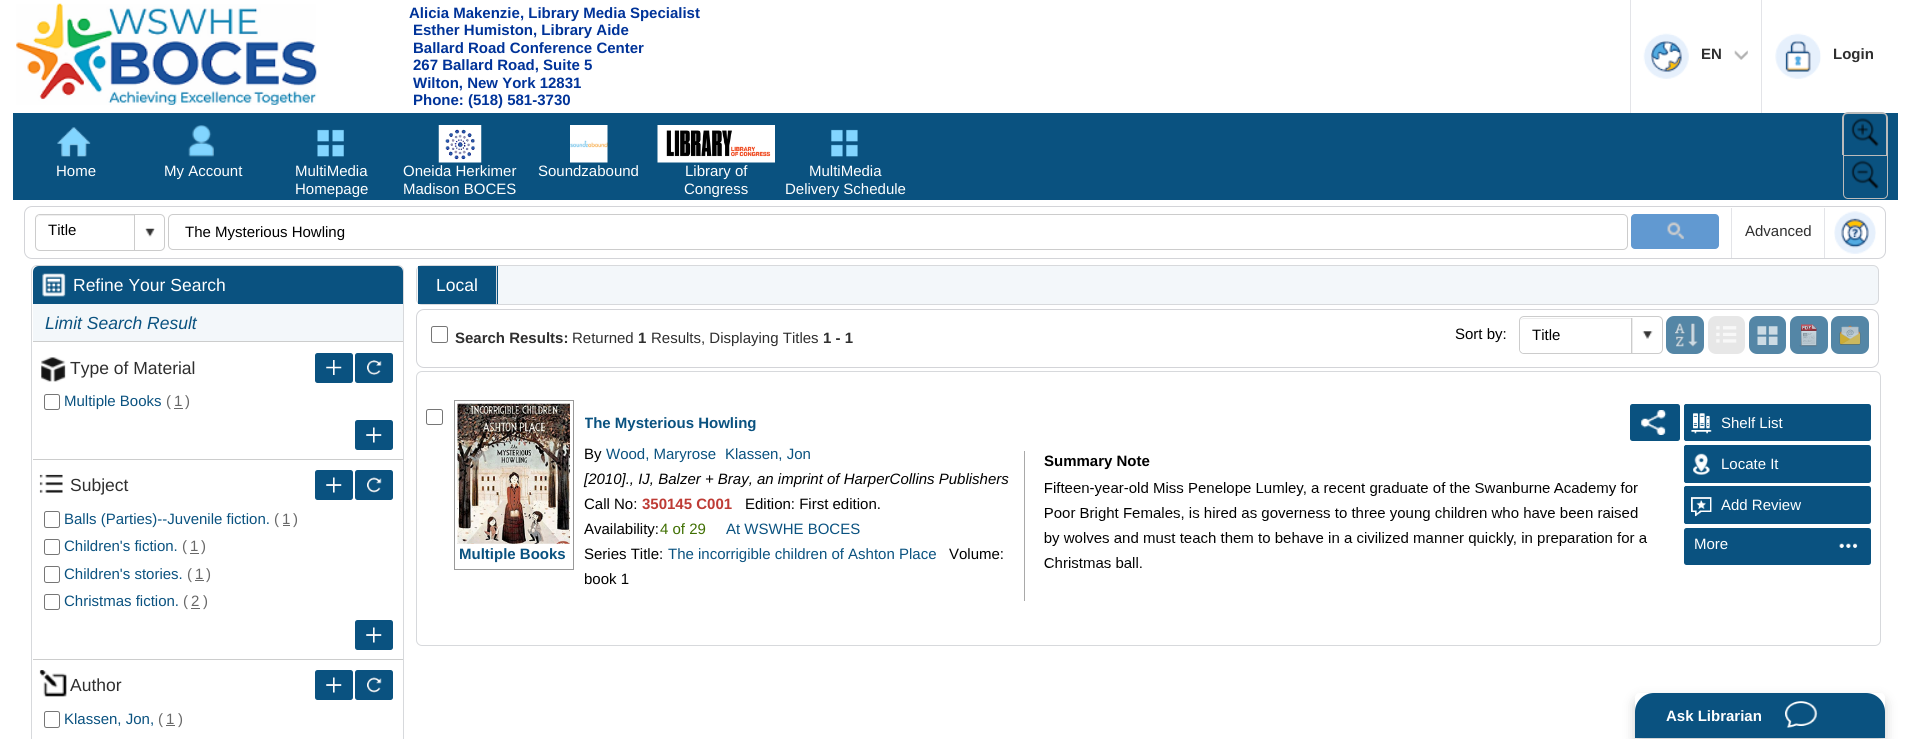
#include <cairo.h>
#include <math.h>
#include <stddef.h>

typedef struct { double x, y; const char *s; } line_t;

static void ink(cairo_t *ctx, unsigned color) {
    cairo_set_source_rgb(ctx, (color >> 16) / 255.0, (color >> 8 & 255) / 255.0, (color & 255) / 255.0);
}

static void round_path(cairo_t *ctx, double x, double y, double w, double h, double r) {
    cairo_new_sub_path(ctx);
    cairo_arc(ctx, x + w - r, y + h - r, r, 0, M_PI / 2);
    cairo_arc(ctx, x + r, y + h - r, r, M_PI / 2, M_PI);
    cairo_arc(ctx, x + r, y + r, r, M_PI, 1.5 * M_PI);
    cairo_arc(ctx, x + w - r, y + r, r, 1.5 * M_PI, 2 * M_PI);
    cairo_close_path(ctx);
}

static void blur_box(cairo_t *ctx, double x, double y, double w, double h, double r, double blur, double alpha) {
    cairo_push_group_with_content(ctx, CAIRO_CONTENT_ALPHA);
    cairo_set_operator(ctx, CAIRO_OPERATOR_SOURCE);
    for (int i = 15; i >= -15 && fmin(w, h) + blur * i / 3 > 0; i -= 2) {
        double e = blur * i / 6;
        cairo_set_source_rgba(ctx, 0, 0, 0, alpha * erfc((i - 1) / 8.5) / 2);
        round_path(ctx, x - e, y - e, w + 2 * e, h + 2 * e, fmax(0, fmin(r + e + blur * .6, fmin(w, h) / 2 + e)));
        cairo_fill(ctx);
    }
    cairo_pattern_t *soft = cairo_pop_group(ctx);
    cairo_mask(ctx, soft);
    cairo_pattern_destroy(soft);
}

static void paste(cairo_t *ctx, const char *path, double x, double y, double w, double h) {
    cairo_surface_t *image = cairo_image_surface_create_from_png(path);
    cairo_save(ctx);
    cairo_set_source_surface(ctx, image, x, y);
    cairo_rectangle(ctx, x, y, w, h);
    cairo_fill(ctx);
    cairo_restore(ctx);
    cairo_surface_destroy(image);
}

int main(void) {
    cairo_surface_t *surface = cairo_image_surface_create(CAIRO_FORMAT_RGB24, 1910, 739);
    cairo_t *ctx = cairo_create(surface);
    cairo_font_options_t *options = cairo_font_options_create();
    cairo_font_options_set_hint_metrics(options, CAIRO_HINT_METRICS_OFF);
    cairo_font_options_set_hint_style(options, CAIRO_HINT_STYLE_NONE);
    cairo_set_font_options(ctx, options);
    cairo_set_miter_limit(ctx, 4);
    ink(ctx, 0xFFFFFF);
    cairo_paint(ctx);
    paste(ctx, "media/1.png", 16, 3, 301, 102);
    cairo_select_font_face(ctx, "Liberation Sans", CAIRO_FONT_SLANT_NORMAL, CAIRO_FONT_WEIGHT_BOLD);
    cairo_set_font_size(ctx, 15);
    ink(ctx, 0x003399);
    {
        static const line_t items[] = {
            {409, 18, "Alicia Makenzie, Library Media Specialist"},
            {413, 35, "Esther Humiston, Library Aide"},
            {413, 53, "Ballard Road Conference Center"},
            {413, 70, "267 Ballard Road, Suite 5"},
            {413, 88, "Wilton, New York 12831"},
            {413, 105, "Phone: (518) 581-3730"},
        };
        for (size_t i = 0; i < sizeof items / sizeof *items; i++) {
            cairo_move_to(ctx, items[i].x, items[i].y);
            cairo_show_text(ctx, items[i].s);
        }
    }
    ink(ctx, 0xE3E4E8);
    cairo_rectangle(ctx, 1630, 0, 1, 113);
    cairo_fill(ctx);
    paste(ctx, "media/2.png", 1643, 33, 46, 46);
    ink(ctx, 0x2F2F2F);
    cairo_move_to(ctx, 1701, 59);
    cairo_show_text(ctx, "EN");
    paste(ctx, "media/3.png", 1734, 50, 14, 10);
    ink(ctx, 0xE3E4E8);
    cairo_rectangle(ctx, 1761, 0, 1, 113);
    cairo_fill(ctx);
    paste(ctx, "media/4.png", 1775, 33, 46, 46);
    ink(ctx, 0x2F2F2F);
    cairo_move_to(ctx, 1833, 59);
    cairo_show_text(ctx, "Login");
    ink(ctx, 0x0A5280);
    cairo_rectangle(ctx, 13, 113, 1885, 87);
    cairo_fill(ctx);
    paste(ctx, "media/5.png", 57, 127, 34, 30);
    cairo_select_font_face(ctx, "Liberation Sans", CAIRO_FONT_SLANT_NORMAL, CAIRO_FONT_WEIGHT_NORMAL);
    ink(ctx, 0xFFFFFF);
    cairo_move_to(ctx, 56, 176);
    cairo_show_text(ctx, "Home");
    paste(ctx, "media/6.png", 188, 125, 26, 32);
    cairo_move_to(ctx, 164, 176);
    cairo_show_text(ctx, "My Account");
    paste(ctx, "media/7.png", 317, 129, 27, 28);
    cairo_move_to(ctx, 295, 176);
    cairo_show_text(ctx, "MultiMedia");
    cairo_move_to(ctx, 295, 194);
    cairo_show_text(ctx, "Homepage");
    paste(ctx, "media/8.png", 438, 125, 44, 38);
    cairo_move_to(ctx, 403, 176);
    cairo_show_text(ctx, "Oneida Herkimer");
    cairo_move_to(ctx, 403, 194);
    cairo_show_text(ctx, "Madison BOCES");
    paste(ctx, "media/9.png", 570, 125, 38, 38);
    cairo_move_to(ctx, 538, 176);
    cairo_show_text(ctx, "Soundzabound");
    paste(ctx, "media/10.png", 657, 125, 118, 38);
    cairo_move_to(ctx, 685, 176);
    cairo_show_text(ctx, "Library of");
    cairo_move_to(ctx, 684, 194);
    cairo_show_text(ctx, "Congress");
    paste(ctx, "media/11.png", 831, 129, 27, 28);
    cairo_move_to(ctx, 809, 176);
    cairo_show_text(ctx, "MultiMedia");
    cairo_move_to(ctx, 785, 194);
    cairo_show_text(ctx, "Delivery Schedule");
    round_path(ctx, 24.5, 206.5, 1861, 52, 7.5);
    ink(ctx, 0xD3D4D8);
    cairo_set_line_width(ctx, 1);
    cairo_stroke(ctx);
    ink(ctx, 0xE3E4E8);
    cairo_rectangle(ctx, 1731, 208, 1, 50);
    cairo_fill(ctx);
    round_path(ctx, 35.5, 214.5, 129, 36, 4.5);
    ink(ctx, 0xCCCCCC);
    cairo_stroke(ctx);
    ink(ctx, 0xFFFFFF);
    cairo_new_path(ctx);
    cairo_move_to(ctx, 40, 215);
    cairo_line_to(ctx, 135, 215);
    cairo_line_to(ctx, 135, 245);
    cairo_line_to(ctx, 40, 245);
    cairo_curve_to(ctx, 38, 245, 36, 243, 36, 241);
    cairo_line_to(ctx, 36, 219);
    cairo_curve_to(ctx, 36, 217, 38, 215, 40, 215);
    cairo_close_path(ctx);
    cairo_fill(ctx);
    cairo_set_source_rgba(ctx, 0, 0, 0, 0.07);
    cairo_new_path(ctx);
    cairo_move_to(ctx, 40, 216);
    cairo_line_to(ctx, 135, 216);
    cairo_line_to(ctx, 135, 215);
    cairo_line_to(ctx, 40, 215);
    cairo_curve_to(ctx, 38, 215, 36, 217, 36, 219);
    cairo_line_to(ctx, 36, 220);
    cairo_curve_to(ctx, 36, 218, 38, 216, 40, 216);
    cairo_close_path(ctx);
    cairo_fill(ctx);
    ink(ctx, 0x000000);
    cairo_move_to(ctx, 48, 235);
    cairo_show_text(ctx, "Title");
    ink(ctx, 0xCCCCCC);
    cairo_rectangle(ctx, 134, 215, 1, 35);
    cairo_fill(ctx);
    paste(ctx, "media/12.png", 145, 228, 10, 9);
    round_path(ctx, 168.5, 214.5, 1459, 35, 4.5);
    cairo_stroke(ctx);
    ink(ctx, 0x000000);
    cairo_move_to(ctx, 185, 237);
    cairo_show_text(ctx, "The Mysterious Howling");
    ink(ctx, 0x6199D1);
    round_path(ctx, 1631, 214, 88, 35, 4);
    cairo_fill(ctx);
    paste(ctx, "media/13.png", 1667, 222, 17, 17);
    ink(ctx, 0xE3E4E8);
    cairo_rectangle(ctx, 1824, 208, 1, 50);
    cairo_fill(ctx);
    ink(ctx, 0x2F2F2F);
    cairo_move_to(ctx, 1745, 236);
    cairo_show_text(ctx, "Advanced");
    paste(ctx, "media/14.png", 1834, 211, 42, 43);
    round_path(ctx, 31.5, 265.5, 372, 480, 5.5);
    ink(ctx, 0xD7D9DC);
    cairo_stroke(ctx);
    cairo_save(ctx);
    round_path(ctx, 33, 266, 370, 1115, 5);
    cairo_clip(ctx);
    ink(ctx, 0x0A5280);
    cairo_new_path(ctx);
    cairo_move_to(ctx, 39, 266);
    cairo_line_to(ctx, 397, 266);
    cairo_curve_to(ctx, 400.5, 266, 403, 268.5, 403, 272);
    cairo_line_to(ctx, 403, 304);
    cairo_line_to(ctx, 33, 304);
    cairo_line_to(ctx, 33, 272);
    cairo_curve_to(ctx, 33, 268.5, 35.5, 266, 39, 266);
    cairo_close_path(ctx);
    cairo_fill(ctx);
    cairo_restore(ctx);
    paste(ctx, "media/15.png", 42, 273, 24, 24);
    cairo_set_font_size(ctx, 17.5);
    ink(ctx, 0xFFFFFF);
    cairo_move_to(ctx, 73, 291);
    cairo_show_text(ctx, "Refine Your Search");
    ink(ctx, 0xF3F7FA);
    cairo_rectangle(ctx, 33, 304, 370, 37);
    cairo_fill(ctx);
    cairo_select_font_face(ctx, "Liberation Sans", CAIRO_FONT_SLANT_ITALIC, CAIRO_FONT_WEIGHT_NORMAL);
    ink(ctx, 0x0A5280);
    cairo_move_to(ctx, 45, 329);
    cairo_show_text(ctx, "Limit Search Result");
    ink(ctx, 0xCCCDCD);
    cairo_rectangle(ctx, 33, 341, 370, 1);
    cairo_fill(ctx);
    paste(ctx, "media/16.png", 41, 357, 25, 25);
    cairo_select_font_face(ctx, "Liberation Sans", CAIRO_FONT_SLANT_NORMAL, CAIRO_FONT_WEIGHT_NORMAL);
    ink(ctx, 0x2F2F2F);
    cairo_move_to(ctx, 70, 374);
    cairo_show_text(ctx, "Type of Material");
    ink(ctx, 0x0A5280);
    round_path(ctx, 315, 353, 38, 30, 2.5);
    cairo_fill(ctx);
    paste(ctx, "media/17.png", 326, 360, 16, 15);
    round_path(ctx, 355, 353, 38, 30, 2.5);
    cairo_fill(ctx);
    paste(ctx, "media/18.png", 367, 360, 15, 15);
    round_path(ctx, 44.5, 394.5, 15, 15, 2);
    ink(ctx, 0x767676);
    cairo_stroke(ctx);
    cairo_set_font_size(ctx, 15);
    ink(ctx, 0x0A5280);
    cairo_move_to(ctx, 64, 406);
    cairo_show_text(ctx, "Multiple Books");
    ink(ctx, 0x686868);
    cairo_move_to(ctx, 166, 406);
    cairo_show_text(ctx, "(");
    cairo_move_to(ctx, 174, 406);
    cairo_show_text(ctx, "1");
    cairo_rectangle(ctx, 174, 408, 9, 1);
    cairo_fill(ctx);
    cairo_move_to(ctx, 185, 406);
    cairo_show_text(ctx, ")");
    ink(ctx, 0x0A5280);
    round_path(ctx, 355, 420, 38, 30, 2.5);
    cairo_fill(ctx);
    paste(ctx, "media/19.png", 366, 427, 16, 16);
    ink(ctx, 0xCCCDCD);
    cairo_rectangle(ctx, 33, 459, 370, 1);
    cairo_fill(ctx);
    paste(ctx, "media/20.png", 39, 474, 24, 19);
    cairo_set_font_size(ctx, 17.5);
    ink(ctx, 0x2F2F2F);
    cairo_move_to(ctx, 70, 491);
    cairo_show_text(ctx, "Subject");
    ink(ctx, 0x0A5280);
    round_path(ctx, 315, 470, 38, 30, 2.5);
    cairo_fill(ctx);
    paste(ctx, "media/19.png", 326, 477, 16, 16);
    round_path(ctx, 355, 470, 38, 30, 2.5);
    cairo_fill(ctx);
    paste(ctx, "media/21.png", 367, 477, 15, 16);
    round_path(ctx, 44.5, 511.5, 15, 16, 2);
    ink(ctx, 0x767676);
    cairo_stroke(ctx);
    cairo_set_font_size(ctx, 15);
    ink(ctx, 0x0A5280);
    cairo_move_to(ctx, 64, 524);
    cairo_show_text(ctx, "Balls (Parties)--Juvenile fiction.");
    ink(ctx, 0x686868);
    cairo_move_to(ctx, 274, 524);
    cairo_show_text(ctx, "(");
    cairo_move_to(ctx, 282, 524);
    cairo_show_text(ctx, "1");
    cairo_rectangle(ctx, 283, 525, 7, 1);
    cairo_fill(ctx);
    cairo_move_to(ctx, 293, 524);
    cairo_show_text(ctx, ")");
    round_path(ctx, 44.5, 539.5, 15, 15, 2);
    ink(ctx, 0x767676);
    cairo_stroke(ctx);
    ink(ctx, 0x0A5280);
    cairo_move_to(ctx, 64, 551);
    cairo_show_text(ctx, "Children's fiction.");
    ink(ctx, 0x686868);
    cairo_move_to(ctx, 182, 551);
    cairo_show_text(ctx, "(");
    cairo_move_to(ctx, 190, 551);
    cairo_show_text(ctx, "1");
    cairo_rectangle(ctx, 190, 553, 9, 1);
    cairo_fill(ctx);
    cairo_move_to(ctx, 201, 551);
    cairo_show_text(ctx, ")");
    round_path(ctx, 44.5, 566.5, 15, 16, 2);
    ink(ctx, 0x767676);
    cairo_stroke(ctx);
    ink(ctx, 0x0A5280);
    cairo_move_to(ctx, 64, 579);
    cairo_show_text(ctx, "Children's stories.");
    ink(ctx, 0x686868);
    cairo_move_to(ctx, 187, 579);
    cairo_show_text(ctx, "(");
    cairo_move_to(ctx, 195, 579);
    cairo_show_text(ctx, "1");
    cairo_rectangle(ctx, 195, 580, 9, 1);
    cairo_fill(ctx);
    cairo_move_to(ctx, 206, 579);
    cairo_show_text(ctx, ")");
    round_path(ctx, 44.5, 594.5, 15, 15, 2);
    ink(ctx, 0x767676);
    cairo_stroke(ctx);
    ink(ctx, 0x0A5280);
    cairo_move_to(ctx, 64, 606);
    cairo_show_text(ctx, "Christmas fiction.");
    ink(ctx, 0x686868);
    cairo_move_to(ctx, 183, 606);
    cairo_show_text(ctx, "(");
    cairo_move_to(ctx, 191, 606);
    cairo_show_text(ctx, "2");
    cairo_rectangle(ctx, 191, 608, 9, 1);
    cairo_fill(ctx);
    cairo_move_to(ctx, 203, 606);
    cairo_show_text(ctx, ")");
    ink(ctx, 0x0A5280);
    round_path(ctx, 355, 620, 38, 30, 2.5);
    cairo_fill(ctx);
    paste(ctx, "media/19.png", 366, 627, 16, 16);
    ink(ctx, 0xCCCDCD);
    cairo_rectangle(ctx, 33, 659, 370, 1);
    cairo_fill(ctx);
    paste(ctx, "media/22.png", 39, 670, 28, 27);
    cairo_set_font_size(ctx, 17.5);
    ink(ctx, 0x2F2F2F);
    cairo_move_to(ctx, 70, 691);
    cairo_show_text(ctx, "Author");
    ink(ctx, 0x0A5280);
    round_path(ctx, 315, 670, 38, 30, 2.5);
    cairo_fill(ctx);
    paste(ctx, "media/19.png", 326, 677, 16, 16);
    round_path(ctx, 355, 670, 38, 30, 2.5);
    cairo_fill(ctx);
    paste(ctx, "media/21.png", 367, 677, 15, 16);
    round_path(ctx, 44.5, 711.5, 15, 16, 2);
    ink(ctx, 0x767676);
    cairo_stroke(ctx);
    cairo_set_font_size(ctx, 15);
    ink(ctx, 0x0A5280);
    cairo_move_to(ctx, 64, 724);
    cairo_show_text(ctx, "Klassen, Jon,");
    ink(ctx, 0x686868);
    cairo_move_to(ctx, 158, 724);
    cairo_show_text(ctx, "(");
    cairo_move_to(ctx, 166, 724);
    cairo_show_text(ctx, "1");
    cairo_rectangle(ctx, 166, 725, 9, 1);
    cairo_fill(ctx);
    cairo_move_to(ctx, 178, 724);
    cairo_show_text(ctx, ")");
    ink(ctx, 0xF3F7FA);
    round_path(ctx, 416.5, 265.5, 1462, 39, 5.5);
    cairo_fill_preserve(ctx);
    ink(ctx, 0xD7D9DC);
    cairo_stroke(ctx);
    ink(ctx, 0x0A5280);
    cairo_rectangle(ctx, 418, 266, 80, 38);
    cairo_fill(ctx);
    ink(ctx, 0xD7D9DC);
    cairo_rectangle(ctx, 496, 266, 1, 38);
    cairo_fill(ctx);
    cairo_set_font_size(ctx, 17.5);
    ink(ctx, 0xFFFFFF);
    cairo_move_to(ctx, 436, 291);
    cairo_show_text(ctx, "Local");
    round_path(ctx, 416.5, 309.5, 1462, 58, 7.5);
    ink(ctx, 0xD3D4D8);
    cairo_stroke(ctx);
    round_path(ctx, 431.5, 326.5, 16, 16, 2);
    ink(ctx, 0x767676);
    cairo_stroke(ctx);
    cairo_select_font_face(ctx, "Liberation Sans", CAIRO_FONT_SLANT_NORMAL, CAIRO_FONT_WEIGHT_BOLD);
    cairo_set_font_size(ctx, 15);
    ink(ctx, 0x2F2F2F);
    cairo_move_to(ctx, 455, 343);
    cairo_show_text(ctx, "Search Results:");
    cairo_select_font_face(ctx, "Liberation Sans", CAIRO_FONT_SLANT_NORMAL, CAIRO_FONT_WEIGHT_NORMAL);
    cairo_move_to(ctx, 572, 343);
    cairo_show_text(ctx, "Returned");
    cairo_select_font_face(ctx, "Liberation Sans", CAIRO_FONT_SLANT_NORMAL, CAIRO_FONT_WEIGHT_BOLD);
    cairo_move_to(ctx, 638, 343);
    cairo_show_text(ctx, "1");
    cairo_select_font_face(ctx, "Liberation Sans", CAIRO_FONT_SLANT_NORMAL, CAIRO_FONT_WEIGHT_NORMAL);
    cairo_move_to(ctx, 651, 343);
    cairo_show_text(ctx, "Results, Displaying Titles");
    cairo_select_font_face(ctx, "Liberation Sans", CAIRO_FONT_SLANT_NORMAL, CAIRO_FONT_WEIGHT_BOLD);
    cairo_move_to(ctx, 823, 343);
    cairo_show_text(ctx, "1 - 1");
    cairo_select_font_face(ctx, "Liberation Sans", CAIRO_FONT_SLANT_NORMAL, CAIRO_FONT_WEIGHT_NORMAL);
    ink(ctx, 0x000000);
    cairo_move_to(ctx, 1455, 339);
    cairo_show_text(ctx, "Sort by:");
    round_path(ctx, 1519.5, 316.5, 143, 37, 4.5);
    ink(ctx, 0xCCCCCC);
    cairo_stroke(ctx);
    ink(ctx, 0xFFFFFF);
    cairo_new_path(ctx);
    cairo_move_to(ctx, 1524, 318);
    cairo_line_to(ctx, 1633, 318);
    cairo_line_to(ctx, 1633, 353);
    cairo_line_to(ctx, 1524, 353);
    cairo_curve_to(ctx, 1522, 353, 1520, 351, 1520, 349);
    cairo_line_to(ctx, 1520, 322);
    cairo_curve_to(ctx, 1520, 320, 1522, 318, 1524, 318);
    cairo_close_path(ctx);
    cairo_fill(ctx);
    ink(ctx, 0xECECEC);
    cairo_new_path(ctx);
    cairo_move_to(ctx, 1524, 319);
    cairo_line_to(ctx, 1632, 319);
    cairo_line_to(ctx, 1632, 353);
    cairo_line_to(ctx, 1633, 353);
    cairo_line_to(ctx, 1633, 318);
    cairo_line_to(ctx, 1524, 318);
    cairo_curve_to(ctx, 1522, 318, 1520, 320, 1520, 322);
    cairo_curve_to(ctx, 1520, 320, 1522, 319, 1524, 319);
    cairo_close_path(ctx);
    cairo_fill(ctx);
    ink(ctx, 0x000000);
    cairo_move_to(ctx, 1532, 340);
    cairo_show_text(ctx, "Title");
    ink(ctx, 0xCCCCCC);
    cairo_rectangle(ctx, 1631, 318, 1, 35);
    cairo_fill(ctx);
    paste(ctx, "media/23.png", 1642, 331, 11, 8);
    ink(ctx, 0x5486A6);
    round_path(ctx, 1666, 316, 38, 38, 8);
    cairo_fill(ctx);
    paste(ctx, "media/24.png", 1675, 323, 23, 24);
    ink(ctx, 0xE7E7E7);
    round_path(ctx, 1708, 316, 37, 38, 8);
    cairo_fill(ctx);
    paste(ctx, "media/25.png", 1716, 326, 21, 17);
    ink(ctx, 0x5486A6);
    round_path(ctx, 1749, 316, 37, 38, 8);
    cairo_fill(ctx);
    paste(ctx, "media/26.png", 1757, 326, 21, 19);
    round_path(ctx, 1790, 316, 38, 38, 8);
    cairo_fill(ctx);
    paste(ctx, "media/27.png", 1799, 324, 18, 23);
    round_path(ctx, 1831, 316, 38, 38, 8);
    cairo_fill(ctx);
    paste(ctx, "media/28.png", 1839, 325, 22, 20);
    round_path(ctx, 416.5, 371.5, 1464, 274, 5.5);
    ink(ctx, 0xD7D9DC);
    cairo_stroke(ctx);
    round_path(ctx, 426.5, 409.5, 16, 15, 2);
    ink(ctx, 0x767676);
    cairo_stroke(ctx);
    cairo_save(ctx);
    cairo_rectangle(ctx, 585, 410, 1041, 25);
    cairo_clip(ctx);
    cairo_select_font_face(ctx, "Liberation Sans", CAIRO_FONT_SLANT_NORMAL, CAIRO_FONT_WEIGHT_BOLD);
    ink(ctx, 0x0A5280);
    cairo_move_to(ctx, 584, 428);
    cairo_show_text(ctx, "The Mysterious Howling");
    cairo_restore(ctx);
    ink(ctx, 0x0A5280);
    round_path(ctx, 1630, 404, 50, 37, 2.5);
    cairo_fill(ctx);
    paste(ctx, "media/29.png", 1641, 410, 26, 25);
    ink(ctx, 0x000000);
    cairo_move_to(ctx, 584, 459);
    cairo_show_text(ctx, "By");
    ink(ctx, 0x0A5280);
    cairo_move_to(ctx, 606, 459);
    cairo_show_text(ctx, "Wood, Maryrose");
    cairo_move_to(ctx, 725, 459);
    cairo_show_text(ctx, "Klassen, Jon");
    cairo_select_font_face(ctx, "Liberation Sans", CAIRO_FONT_SLANT_ITALIC, CAIRO_FONT_WEIGHT_NORMAL);
    ink(ctx, 0x000000);
    cairo_move_to(ctx, 584, 484);
    cairo_show_text(ctx, "[2010]., IJ, Balzer + Bray, an imprint of HarperCollins Publishers");
    cairo_select_font_face(ctx, "Liberation Sans", CAIRO_FONT_SLANT_NORMAL, CAIRO_FONT_WEIGHT_NORMAL);
    cairo_move_to(ctx, 584, 509);
    cairo_show_text(ctx, "Call No:");
    cairo_select_font_face(ctx, "Liberation Sans", CAIRO_FONT_SLANT_NORMAL, CAIRO_FONT_WEIGHT_BOLD);
    ink(ctx, 0xBE3B35);
    cairo_move_to(ctx, 642, 509);
    cairo_show_text(ctx, "350145 C001");
    cairo_select_font_face(ctx, "Liberation Sans", CAIRO_FONT_SLANT_NORMAL, CAIRO_FONT_WEIGHT_NORMAL);
    ink(ctx, 0x000000);
    cairo_move_to(ctx, 745, 509);
    cairo_show_text(ctx, "Edition: First edition.");
    cairo_move_to(ctx, 584, 534);
    cairo_show_text(ctx, "Availability:");
    ink(ctx, 0x3F6F01);
    cairo_move_to(ctx, 660, 534);
    cairo_show_text(ctx, "4 of 29");
    ink(ctx, 0x0A5280);
    cairo_move_to(ctx, 726, 534);
    cairo_show_text(ctx, "At WSWHE BOCES");
    ink(ctx, 0x000000);
    cairo_move_to(ctx, 584, 559);
    cairo_show_text(ctx, "Series Title:");
    ink(ctx, 0x0A5280);
    cairo_move_to(ctx, 668, 559);
    cairo_show_text(ctx, "The incorrigible children of Ashton Place");
    ink(ctx, 0x000000);
    cairo_move_to(ctx, 949, 559);
    cairo_show_text(ctx, "Volume:");
    cairo_move_to(ctx, 584, 584);
    cairo_show_text(ctx, "book 1");
    ink(ctx, 0xA9A9A9);
    cairo_rectangle(ctx, 1024, 451, 1, 150);
    cairo_fill(ctx);
    cairo_select_font_face(ctx, "Liberation Sans", CAIRO_FONT_SLANT_NORMAL, CAIRO_FONT_WEIGHT_BOLD);
    ink(ctx, 0x000000);
    cairo_move_to(ctx, 1044, 466);
    cairo_show_text(ctx, "Summary Note");
    paste(ctx, "media/30.png", 1044, 482, 604, 86);
    ink(ctx, 0x0A5280);
    round_path(ctx, 1684, 404, 187, 37, 2.5);
    cairo_fill(ctx);
    round_path(ctx, 1684, 404, 37, 37, 2.5);
    cairo_fill(ctx);
    paste(ctx, "media/31.png", 1691, 413, 21, 21);
    cairo_select_font_face(ctx, "Liberation Sans", CAIRO_FONT_SLANT_NORMAL, CAIRO_FONT_WEIGHT_NORMAL);
    ink(ctx, 0xFFFFFF);
    cairo_move_to(ctx, 1721, 428);
    cairo_show_text(ctx, "Shelf List");
    ink(ctx, 0x0A5280);
    round_path(ctx, 1684, 445, 187, 38, 2.5);
    cairo_fill(ctx);
    round_path(ctx, 1684, 445, 37, 38, 2.5);
    cairo_fill(ctx);
    paste(ctx, "media/32.png", 1693, 453, 17, 22);
    ink(ctx, 0xFFFFFF);
    cairo_move_to(ctx, 1721, 469);
    cairo_show_text(ctx, "Locate It");
    ink(ctx, 0x0A5280);
    round_path(ctx, 1684, 486, 187, 38, 2.5);
    cairo_fill(ctx);
    round_path(ctx, 1684, 486, 37, 38, 2.5);
    cairo_fill(ctx);
    paste(ctx, "media/33.png", 1691, 497, 21, 20);
    ink(ctx, 0xFFFFFF);
    cairo_move_to(ctx, 1721, 510);
    cairo_show_text(ctx, "Add Review");
    ink(ctx, 0x0A5280);
    round_path(ctx, 1684, 528, 187, 37, 2.5);
    cairo_fill(ctx);
    ink(ctx, 0xFFFFFF);
    cairo_move_to(ctx, 1694, 549);
    cairo_show_text(ctx, "More");
    paste(ctx, "media/34.png", 1839, 543, 19, 5);
    cairo_rectangle(ctx, 454.5, 400.5, 119, 169);
    ink(ctx, 0x999999);
    cairo_stroke(ctx);
    paste(ctx, "media/35.png", 457, 403, 113, 141);
    cairo_select_font_face(ctx, "Liberation Sans", CAIRO_FONT_SLANT_NORMAL, CAIRO_FONT_WEIGHT_BOLD);
    ink(ctx, 0x0A5280);
    cairo_move_to(ctx, 459, 559);
    cairo_show_text(ctx, "Multiple Books");
    ink(ctx, 0xBBBBBB);
    cairo_set_fill_rule(ctx, CAIRO_FILL_RULE_EVEN_ODD);
    cairo_new_path(ctx);
    cairo_move_to(ctx, 1848, 112);
    cairo_line_to(ctx, 1882, 112);
    cairo_curve_to(ctx, 1885, 112, 1888, 115, 1888, 118);
    cairo_line_to(ctx, 1888, 155);
    cairo_line_to(ctx, 1842, 155);
    cairo_line_to(ctx, 1842, 118);
    cairo_curve_to(ctx, 1842, 115, 1845, 112, 1848, 112);
    cairo_close_path(ctx);
    cairo_move_to(ctx, 1848, 114);
    cairo_line_to(ctx, 1882, 114);
    cairo_curve_to(ctx, 1885, 114, 1886, 115, 1886, 118);
    cairo_line_to(ctx, 1886, 155);
    cairo_line_to(ctx, 1844, 155);
    cairo_line_to(ctx, 1844, 118);
    cairo_curve_to(ctx, 1844, 115, 1845, 114, 1848, 114);
    cairo_close_path(ctx);
    cairo_fill(ctx);
    paste(ctx, "media/36.png", 1851, 118, 28, 29);
    cairo_new_path(ctx);
    cairo_move_to(ctx, 1843.5, 155.5);
    cairo_line_to(ctx, 1887.5, 155.5);
    cairo_line_to(ctx, 1887.5, 194);
    cairo_curve_to(ctx, 1887.5, 196.5, 1885.5, 198.5, 1883, 198.5);
    cairo_line_to(ctx, 1848, 198.5);
    cairo_curve_to(ctx, 1845.5, 198.5, 1843.5, 196.5, 1843.5, 194);
    cairo_close_path(ctx);
    cairo_stroke(ctx);
    paste(ctx, "media/37.png", 1851, 160, 28, 29);
    cairo_save(ctx);
    cairo_new_path(ctx);
    cairo_move_to(ctx, 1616, 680);
    cairo_line_to(ctx, 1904, 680);
    cairo_line_to(ctx, 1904, 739);
    cairo_line_to(ctx, 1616, 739);
    cairo_close_path(ctx);
    cairo_move_to(ctx, 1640, 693);
    cairo_line_to(ctx, 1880, 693);
    cairo_curve_to(ctx, 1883, 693, 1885, 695, 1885, 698);
    cairo_line_to(ctx, 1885, 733);
    cairo_curve_to(ctx, 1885, 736, 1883, 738, 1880, 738);
    cairo_line_to(ctx, 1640, 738);
    cairo_curve_to(ctx, 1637, 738, 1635, 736, 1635, 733);
    cairo_line_to(ctx, 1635, 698);
    cairo_curve_to(ctx, 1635, 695, 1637, 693, 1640, 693);
    cairo_close_path(ctx);
    cairo_clip(ctx);
    ink(ctx, 0x000000);
    blur_box(ctx, 1635, 699, 250, 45, 5, 6, 0.2);
    cairo_restore(ctx);
    ink(ctx, 0x0A5280);
    cairo_new_path(ctx);
    cairo_move_to(ctx, 1654, 693);
    cairo_line_to(ctx, 1866, 693);
    cairo_curve_to(ctx, 1876.5, 693, 1885, 701.5, 1885, 712);
    cairo_line_to(ctx, 1885, 738);
    cairo_line_to(ctx, 1635, 738);
    cairo_line_to(ctx, 1635, 712);
    cairo_curve_to(ctx, 1635, 701.5, 1643.5, 693, 1654, 693);
    cairo_close_path(ctx);
    cairo_fill(ctx);
    ink(ctx, 0xFFFFFF);
    cairo_move_to(ctx, 1666, 721);
    cairo_show_text(ctx, "Ask Librarian");
    paste(ctx, "media/38.png", 1785, 701, 33, 27);
    cairo_surface_write_to_png(surface, "image.png");
    cairo_font_options_destroy(options);
    cairo_destroy(ctx);
    cairo_surface_destroy(surface);
    return 0;
}
